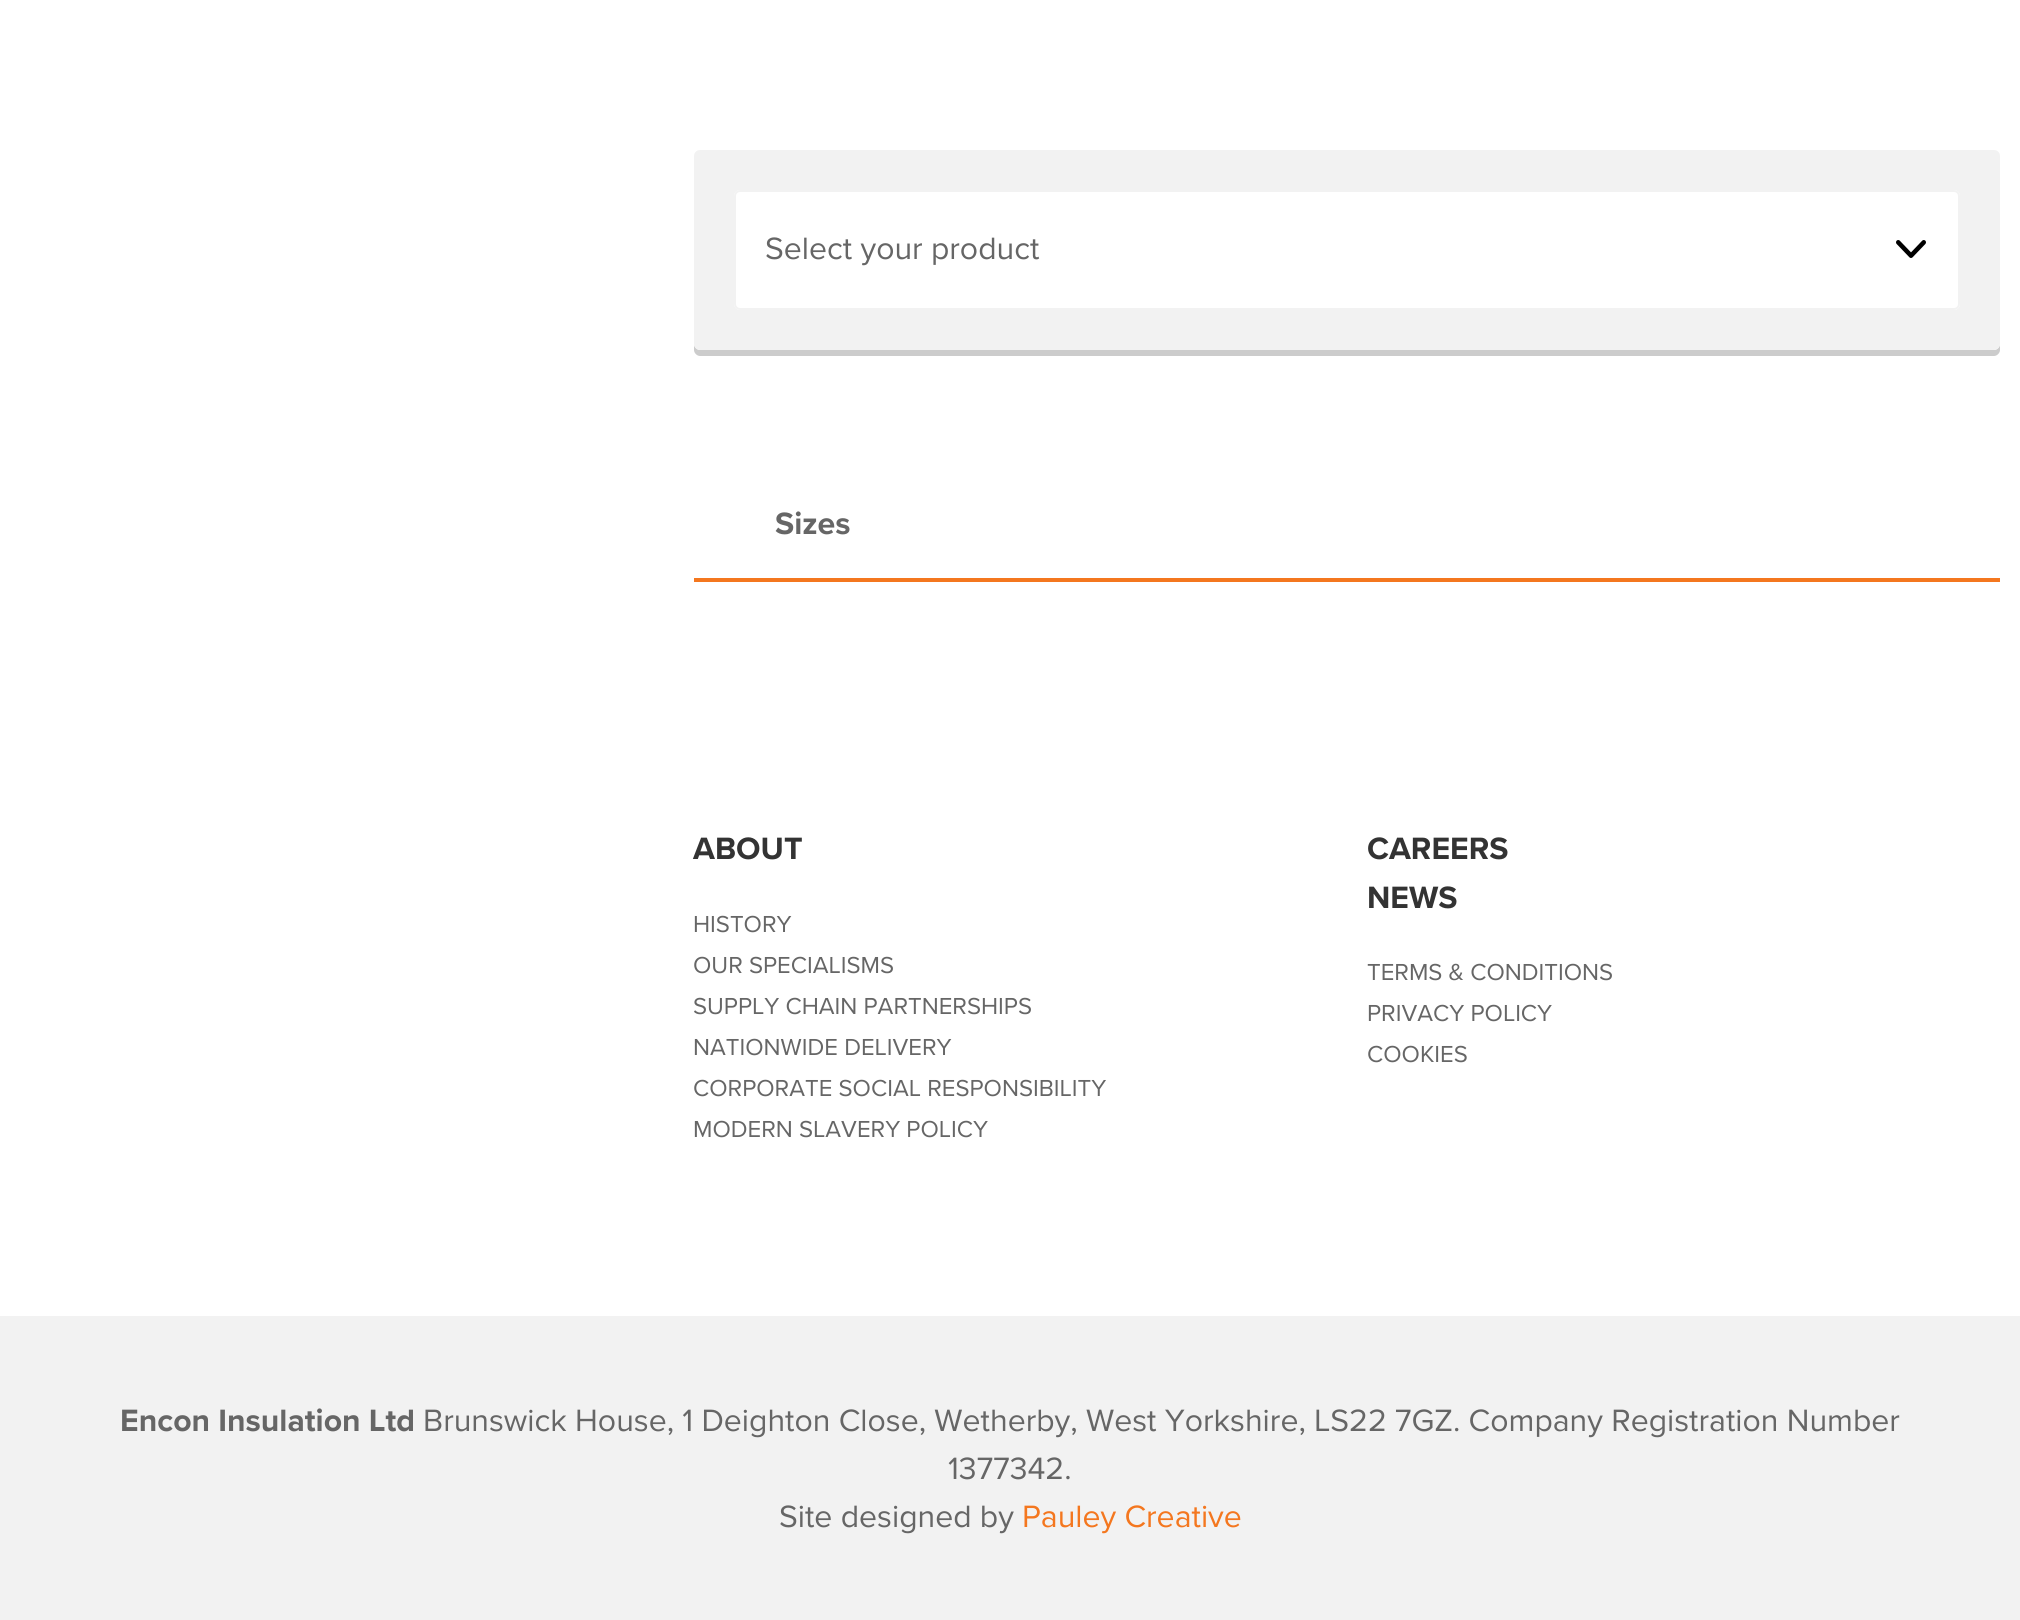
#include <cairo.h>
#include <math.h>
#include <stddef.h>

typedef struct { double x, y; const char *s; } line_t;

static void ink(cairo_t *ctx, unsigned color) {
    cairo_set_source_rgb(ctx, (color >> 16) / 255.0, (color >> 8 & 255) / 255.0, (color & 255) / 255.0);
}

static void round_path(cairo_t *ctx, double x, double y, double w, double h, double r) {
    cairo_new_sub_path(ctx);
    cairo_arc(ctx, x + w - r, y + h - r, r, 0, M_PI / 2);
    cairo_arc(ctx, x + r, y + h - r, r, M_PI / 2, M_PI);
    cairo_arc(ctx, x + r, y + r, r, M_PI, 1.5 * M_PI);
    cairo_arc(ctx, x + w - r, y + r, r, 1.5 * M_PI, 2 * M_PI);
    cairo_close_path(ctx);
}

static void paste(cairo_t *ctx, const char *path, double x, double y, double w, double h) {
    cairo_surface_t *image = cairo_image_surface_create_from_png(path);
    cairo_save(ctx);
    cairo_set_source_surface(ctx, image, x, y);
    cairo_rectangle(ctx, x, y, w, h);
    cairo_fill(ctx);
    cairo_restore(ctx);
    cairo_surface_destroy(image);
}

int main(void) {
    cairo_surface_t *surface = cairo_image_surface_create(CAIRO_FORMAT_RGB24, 2020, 1620);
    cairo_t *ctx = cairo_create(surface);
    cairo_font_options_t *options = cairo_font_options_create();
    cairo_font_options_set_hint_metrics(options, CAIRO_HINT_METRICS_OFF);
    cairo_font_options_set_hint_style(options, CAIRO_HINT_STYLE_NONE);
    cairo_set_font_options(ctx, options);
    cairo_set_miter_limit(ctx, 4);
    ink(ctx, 0xFFFFFF);
    cairo_paint(ctx);
    ink(ctx, 0xCCCCCC);
    cairo_new_path(ctx);
    cairo_move_to(ctx, 694, 344);
    cairo_line_to(ctx, 694, 350);
    cairo_curve_to(ctx, 694, 353, 697, 356, 700, 356);
    cairo_line_to(ctx, 1994, 356);
    cairo_curve_to(ctx, 1997, 356, 2000, 353, 2000, 350);
    cairo_line_to(ctx, 2000, 344);
    cairo_curve_to(ctx, 2000, 347, 1997, 350, 1994, 350);
    cairo_line_to(ctx, 700, 350);
    cairo_curve_to(ctx, 697, 350, 694, 347, 694, 344);
    cairo_close_path(ctx);
    cairo_fill(ctx);
    ink(ctx, 0xF2F2F2);
    round_path(ctx, 694, 150, 1306, 200, 6);
    cairo_fill(ctx);
    ink(ctx, 0xFFFFFF);
    round_path(ctx, 734, 190, 1226, 120, 6);
    cairo_fill(ctx);
    paste(ctx, "media/1.png", 1896, 240, 30, 18);
    round_path(ctx, 735, 191, 1224, 118, 5);
    ink(ctx, 0xF2F2F2);
    cairo_stroke(ctx);
    cairo_select_font_face(ctx, "Proxima Nova", CAIRO_FONT_SLANT_NORMAL, CAIRO_FONT_WEIGHT_NORMAL);
    cairo_set_font_size(ctx, 32);
    ink(ctx, 0x666666);
    cairo_move_to(ctx, 765, 259);
    cairo_show_text(ctx, "Select your product");
    cairo_select_font_face(ctx, "Proxima Nova", CAIRO_FONT_SLANT_NORMAL, CAIRO_FONT_WEIGHT_BOLD);
    cairo_move_to(ctx, 775, 534);
    cairo_show_text(ctx, "Sizes");
    ink(ctx, 0xF4771F);
    cairo_rectangle(ctx, 694, 578, 1306, 4);
    cairo_fill(ctx);
    ink(ctx, 0x333333);
    cairo_move_to(ctx, 693, 859);
    cairo_show_text(ctx, "ABOUT");
    cairo_select_font_face(ctx, "Proxima Nova", CAIRO_FONT_SLANT_NORMAL, CAIRO_FONT_WEIGHT_NORMAL);
    cairo_set_font_size(ctx, 24);
    ink(ctx, 0x666666);
    {
        static const line_t items[] = {
            {693, 932, "HISTORY"},
            {693, 973, "OUR SPECIALISMS"},
            {693, 1014, "SUPPLY CHAIN PARTNERSHIPS"},
            {693, 1055, "NATIONWIDE DELIVERY"},
            {693, 1096, "CORPORATE SOCIAL RESPONSIBILITY"},
            {693, 1137, "MODERN SLAVERY POLICY"},
        };
        for (size_t i = 0; i < sizeof items / sizeof *items; i++) {
            cairo_move_to(ctx, items[i].x, items[i].y);
            cairo_show_text(ctx, items[i].s);
        }
    }
    cairo_select_font_face(ctx, "Proxima Nova", CAIRO_FONT_SLANT_NORMAL, CAIRO_FONT_WEIGHT_BOLD);
    cairo_set_font_size(ctx, 32);
    ink(ctx, 0x333333);
    cairo_move_to(ctx, 1367, 859);
    cairo_show_text(ctx, "CAREERS");
    cairo_move_to(ctx, 1367, 908);
    cairo_show_text(ctx, "NEWS");
    cairo_select_font_face(ctx, "Proxima Nova", CAIRO_FONT_SLANT_NORMAL, CAIRO_FONT_WEIGHT_NORMAL);
    cairo_set_font_size(ctx, 24);
    ink(ctx, 0x666666);
    {
        static const line_t items[] = {
            {1367, 980, "TERMS & CONDITIONS"},
            {1367, 1021, "PRIVACY POLICY"},
            {1367, 1062, "COOKIES"},
        };
        for (size_t i = 0; i < sizeof items / sizeof *items; i++) {
            cairo_move_to(ctx, items[i].x, items[i].y);
            cairo_show_text(ctx, items[i].s);
        }
    }
    ink(ctx, 0xF2F2F2);
    cairo_rectangle(ctx, 0, 1316, 2020, 304);
    cairo_fill(ctx);
    cairo_select_font_face(ctx, "Proxima Nova", CAIRO_FONT_SLANT_NORMAL, CAIRO_FONT_WEIGHT_BOLD);
    cairo_set_font_size(ctx, 32);
    ink(ctx, 0x666666);
    cairo_move_to(ctx, 120, 1431);
    cairo_show_text(ctx, "Encon Insulation Ltd");
    cairo_select_font_face(ctx, "Proxima Nova", CAIRO_FONT_SLANT_NORMAL, CAIRO_FONT_WEIGHT_NORMAL);
    {
        static const line_t items[] = {
            {423, 1431, "Brunswick House, 1 Deighton Close, Wetherby, West Yorkshire, LS22 7GZ. Company Registration Number"},
            {948, 1479, "1377342."},
            {779, 1527, "Site designed by"},
        };
        for (size_t i = 0; i < sizeof items / sizeof *items; i++) {
            cairo_move_to(ctx, items[i].x, items[i].y);
            cairo_show_text(ctx, items[i].s);
        }
    }
    ink(ctx, 0xF4771F);
    cairo_move_to(ctx, 1022, 1527);
    cairo_show_text(ctx, "Pauley Creative");
    cairo_surface_write_to_png(surface, "image.png");
    cairo_font_options_destroy(options);
    cairo_destroy(ctx);
    cairo_surface_destroy(surface);
    return 0;
}
